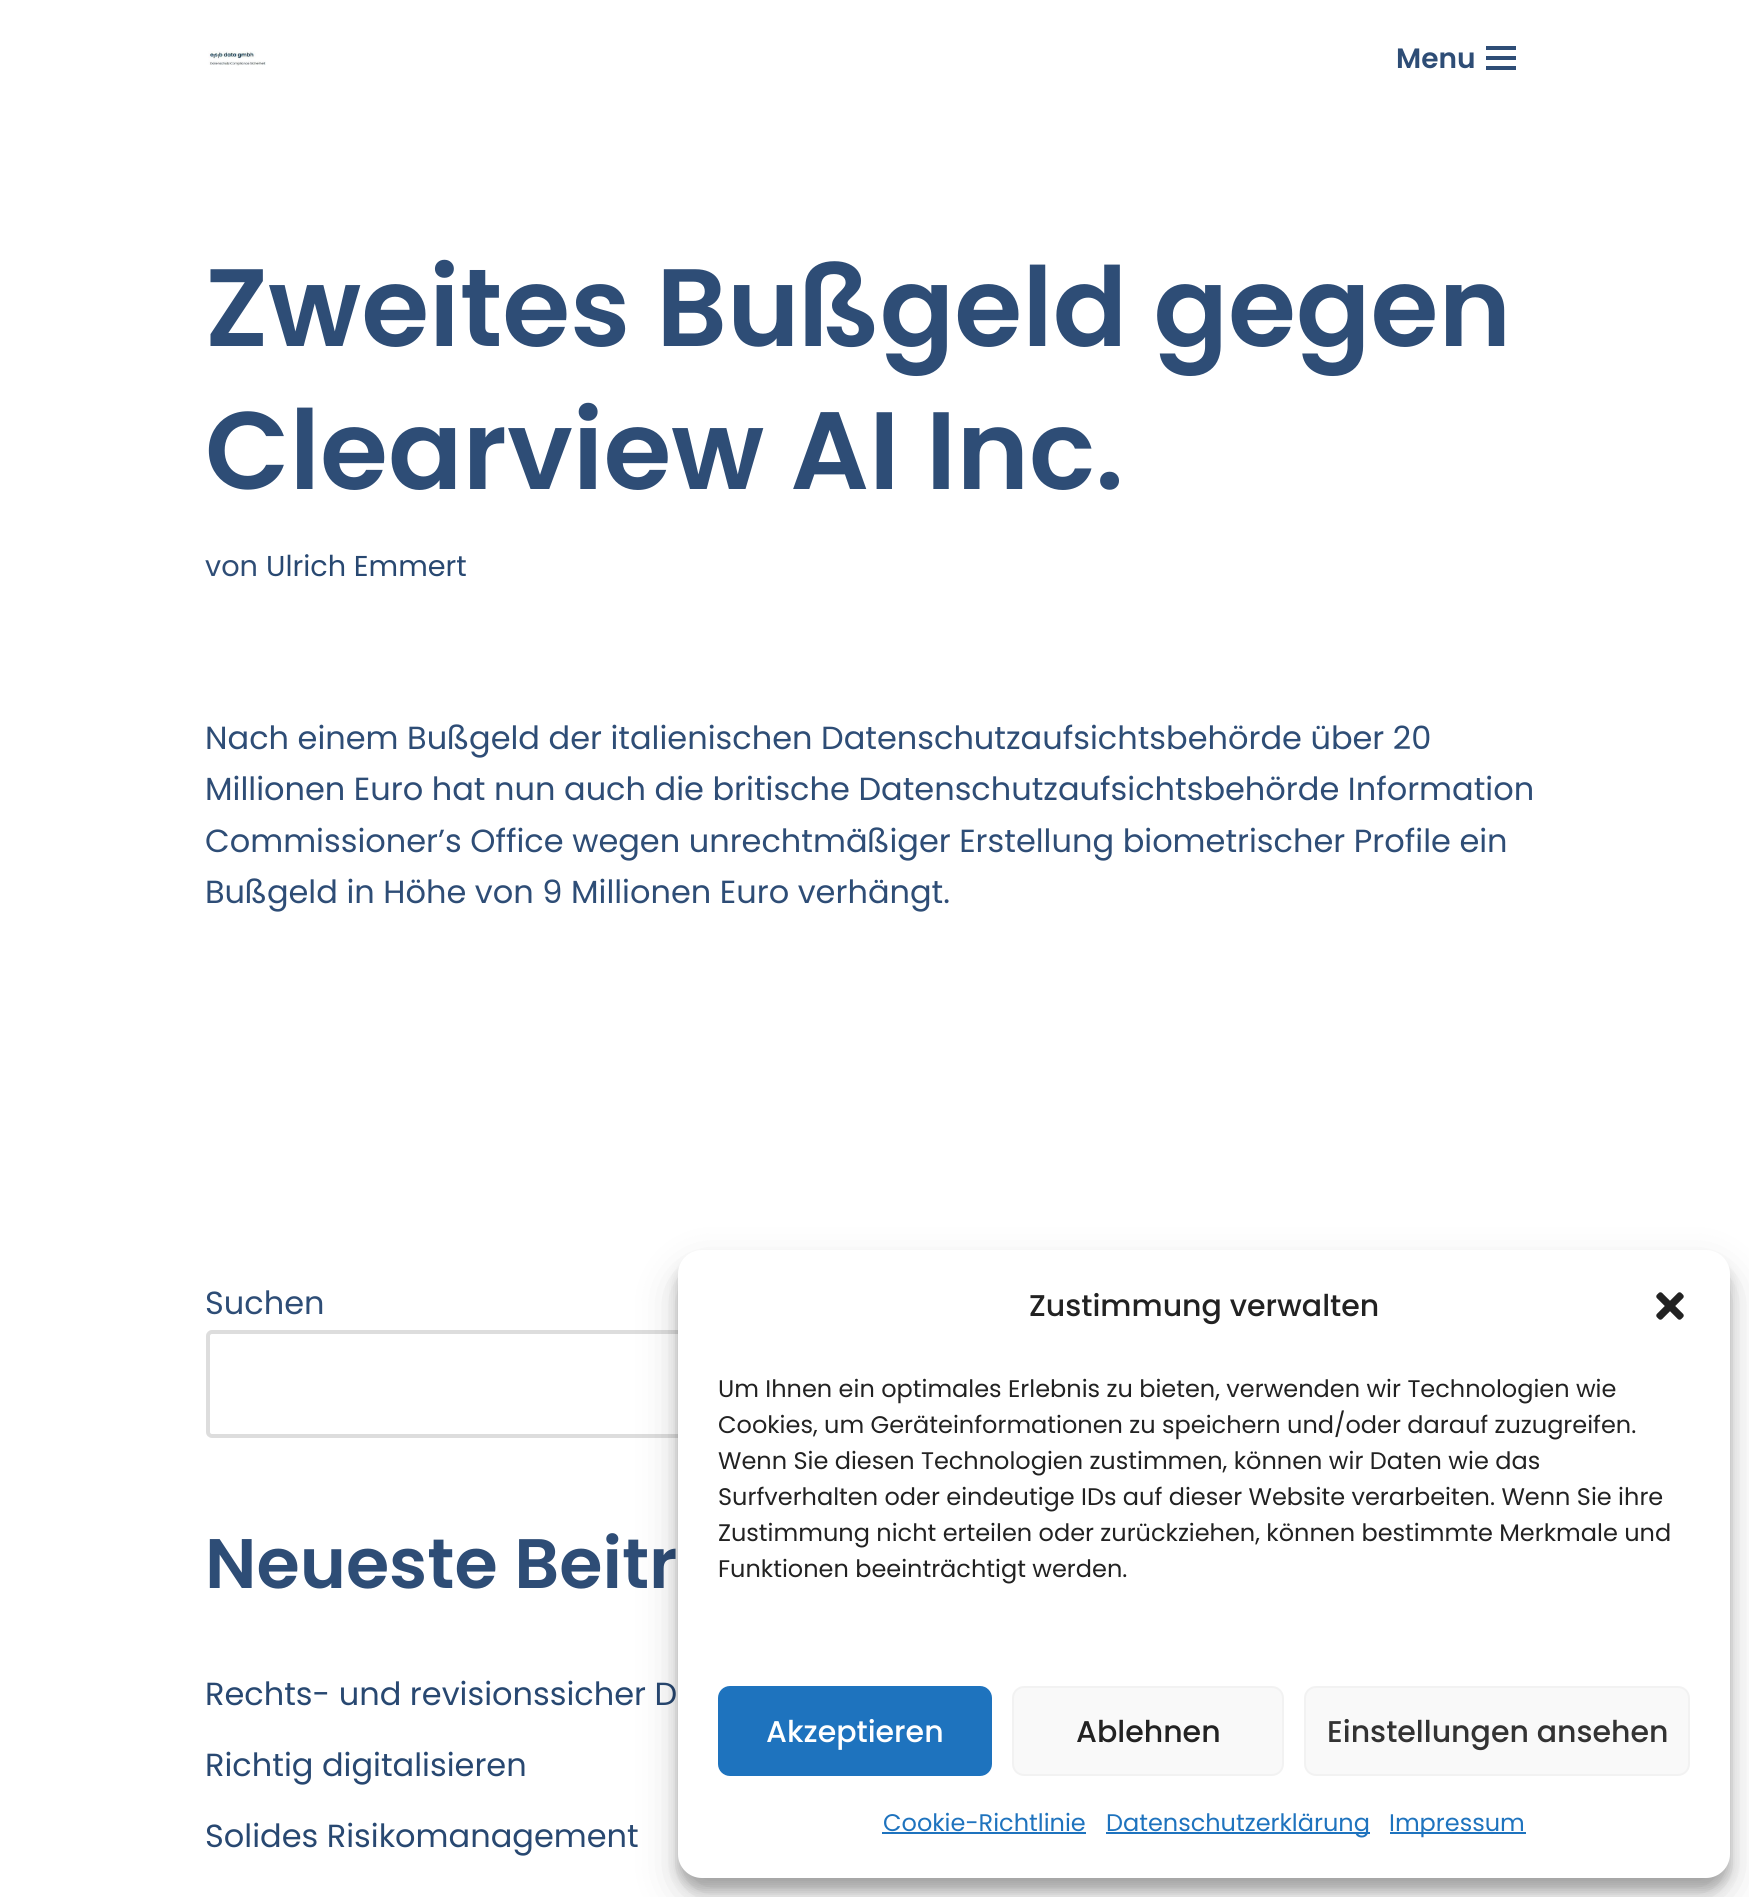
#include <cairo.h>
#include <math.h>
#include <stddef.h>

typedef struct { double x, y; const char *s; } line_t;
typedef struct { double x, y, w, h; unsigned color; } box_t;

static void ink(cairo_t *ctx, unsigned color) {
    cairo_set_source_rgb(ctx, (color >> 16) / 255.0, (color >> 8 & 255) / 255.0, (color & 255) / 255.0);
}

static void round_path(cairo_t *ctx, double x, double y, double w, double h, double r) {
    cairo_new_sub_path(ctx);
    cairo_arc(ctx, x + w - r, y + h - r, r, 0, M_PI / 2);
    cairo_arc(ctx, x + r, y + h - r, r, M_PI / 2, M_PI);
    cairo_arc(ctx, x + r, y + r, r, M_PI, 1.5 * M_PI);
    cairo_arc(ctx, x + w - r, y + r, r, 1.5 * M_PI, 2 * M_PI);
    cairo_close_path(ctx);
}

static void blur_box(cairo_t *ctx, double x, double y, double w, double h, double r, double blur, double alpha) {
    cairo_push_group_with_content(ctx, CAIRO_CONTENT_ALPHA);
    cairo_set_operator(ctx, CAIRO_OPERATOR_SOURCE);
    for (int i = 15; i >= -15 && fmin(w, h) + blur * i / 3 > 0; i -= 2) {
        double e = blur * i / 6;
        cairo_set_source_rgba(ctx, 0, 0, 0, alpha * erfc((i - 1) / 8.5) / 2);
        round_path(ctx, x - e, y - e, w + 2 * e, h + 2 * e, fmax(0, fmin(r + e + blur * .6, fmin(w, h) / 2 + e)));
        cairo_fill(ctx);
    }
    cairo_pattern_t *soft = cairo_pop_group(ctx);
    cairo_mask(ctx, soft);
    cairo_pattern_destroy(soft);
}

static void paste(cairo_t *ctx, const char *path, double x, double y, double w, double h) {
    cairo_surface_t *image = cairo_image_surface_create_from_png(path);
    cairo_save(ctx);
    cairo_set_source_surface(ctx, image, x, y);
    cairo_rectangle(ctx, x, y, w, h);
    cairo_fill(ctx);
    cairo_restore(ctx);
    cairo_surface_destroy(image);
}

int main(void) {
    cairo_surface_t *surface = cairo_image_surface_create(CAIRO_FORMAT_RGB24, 1749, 1897);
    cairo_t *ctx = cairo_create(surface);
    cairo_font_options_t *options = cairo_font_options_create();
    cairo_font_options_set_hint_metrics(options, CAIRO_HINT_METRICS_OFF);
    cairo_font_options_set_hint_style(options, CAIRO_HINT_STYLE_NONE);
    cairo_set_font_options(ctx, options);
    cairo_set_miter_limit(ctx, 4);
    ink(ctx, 0xFFFFFF);
    cairo_paint(ctx);
    paste(ctx, "media/1.png", 208, 51, 58, 15);
    cairo_select_font_face(ctx, "Poppins SemiBold", CAIRO_FONT_SLANT_NORMAL, CAIRO_FONT_WEIGHT_NORMAL);
    cairo_set_font_size(ctx, 28);
    ink(ctx, 0x2E4D76);
    cairo_move_to(ctx, 1396, 68);
    cairo_show_text(ctx, "Menu");
    {
        static const box_t items[] = {
            {1486, 46, 30, 4, 0x2E4D76},
            {1486, 56, 30, 4, 0x2E4D76},
            {1486, 66, 30, 4, 0x2E4D76},
        };
        for (size_t i = 0; i < sizeof items / sizeof *items; i++) {
            ink(ctx, items[i].color);
            cairo_rectangle(ctx, items[i].x, items[i].y, items[i].w, items[i].h);
            cairo_fill(ctx);
        }
    }
    cairo_set_font_size(ctx, 110);
    cairo_move_to(ctx, 205, 346);
    cairo_show_text(ctx, "Zweites Bußgeld gegen");
    cairo_move_to(ctx, 205, 489);
    cairo_show_text(ctx, "Clearview AI Inc.");
    cairo_select_font_face(ctx, "Poppins", CAIRO_FONT_SLANT_NORMAL, CAIRO_FONT_WEIGHT_NORMAL);
    cairo_set_font_size(ctx, 28.75);
    cairo_move_to(ctx, 205, 576);
    cairo_show_text(ctx, "von");
    ink(ctx, 0x284871);
    cairo_move_to(ctx, 266, 576);
    cairo_show_text(ctx, "Ulrich Emmert");
    cairo_set_font_size(ctx, 32);
    ink(ctx, 0x2E4D76);
    {
        static const line_t items[] = {
            {205, 749, "Nach einem Bußgeld der italienischen Datenschutzaufsichtsbehörde über 20"},
            {205, 800, "Millionen Euro hat nun auch die britische Datenschutzaufsichtsbehörde Information"},
            {205, 852, "Commissioner’s Office wegen unrechtmäßiger Erstellung biometrischer Profile ein"},
            {205, 903, "Bußgeld in Höhe von 9 Millionen Euro verhängt."},
            {205, 1314, "Suchen"},
        };
        for (size_t i = 0; i < sizeof items / sizeof *items; i++) {
            cairo_move_to(ctx, items[i].x, items[i].y);
            cairo_show_text(ctx, items[i].s);
        }
    }
    round_path(ctx, 208, 1332, 1068, 104, 4);
    ink(ctx, 0xDDDDDD);
    cairo_set_line_width(ctx, 4);
    cairo_stroke(ctx);
    cairo_select_font_face(ctx, "Poppins SemiBold", CAIRO_FONT_SLANT_NORMAL, CAIRO_FONT_WEIGHT_NORMAL);
    cairo_set_font_size(ctx, 70);
    ink(ctx, 0x2E4D76);
    cairo_move_to(ctx, 205, 1588);
    cairo_show_text(ctx, "Neueste Beitr");
    cairo_select_font_face(ctx, "Poppins", CAIRO_FONT_SLANT_NORMAL, CAIRO_FONT_WEIGHT_NORMAL);
    cairo_set_font_size(ctx, 32);
    ink(ctx, 0x284871);
    {
        static const line_t items[] = {
            {205, 1705, "Rechts- und revisionssicher D"},
            {205, 1776, "Richtig digitalisieren"},
            {205, 1847, "Solides Risikomanagement"},
        };
        for (size_t i = 0; i < sizeof items / sizeof *items; i++) {
            cairo_move_to(ctx, items[i].x, items[i].y);
            cairo_show_text(ctx, items[i].s);
        }
    }
    ink(ctx, 0x000000);
    blur_box(ctx, 678, 1262, 1052, 628, 24, 6, 0.23);
    blur_box(ctx, 678, 1270, 1052, 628, 24, 20, 0.19);
    ink(ctx, 0xFFFFFF);
    round_path(ctx, 678, 1250, 1052, 628, 24);
    cairo_fill(ctx);
    cairo_select_font_face(ctx, "Poppins Medium", CAIRO_FONT_SLANT_NORMAL, CAIRO_FONT_WEIGHT_NORMAL);
    cairo_set_font_size(ctx, 30);
    ink(ctx, 0x222222);
    cairo_move_to(ctx, 1029, 1316);
    cairo_show_text(ctx, "Zustimmung verwalten");
    paste(ctx, "media/2.png", 1656, 1292, 28, 28);
    cairo_select_font_face(ctx, "Poppins", CAIRO_FONT_SLANT_NORMAL, CAIRO_FONT_WEIGHT_NORMAL);
    cairo_set_font_size(ctx, 24);
    {
        static const line_t items[] = {
            {718, 1397, "Um Ihnen ein optimales Erlebnis zu bieten, verwenden wir Technologien wie"},
            {718, 1433, "Cookies, um Geräteinformationen zu speichern und/oder darauf zuzugreifen."},
            {718, 1469, "Wenn Sie diesen Technologien zustimmen, können wir Daten wie das"},
            {718, 1505, "Surfverhalten oder eindeutige IDs auf dieser Website verarbeiten. Wenn Sie ihre"},
            {718, 1541, "Zustimmung nicht erteilen oder zurückziehen, können bestimmte Merkmale und"},
            {718, 1577, "Funktionen beeinträchtigt werden."},
        };
        for (size_t i = 0; i < sizeof items / sizeof *items; i++) {
            cairo_move_to(ctx, items[i].x, items[i].y);
            cairo_show_text(ctx, items[i].s);
        }
    }
    ink(ctx, 0x1E73BE);
    round_path(ctx, 719, 1687, 272, 88, 11);
    cairo_fill_preserve(ctx);
    cairo_set_line_width(ctx, 2);
    cairo_stroke(ctx);
    cairo_select_font_face(ctx, "Poppins Medium", CAIRO_FONT_SLANT_NORMAL, CAIRO_FONT_WEIGHT_NORMAL);
    cairo_set_font_size(ctx, 30);
    ink(ctx, 0xFFFFFF);
    cairo_move_to(ctx, 766, 1742);
    cairo_show_text(ctx, "Akzeptieren");
    ink(ctx, 0xF9F9F9);
    round_path(ctx, 1013, 1687, 270, 88, 11);
    cairo_fill_preserve(ctx);
    ink(ctx, 0xF2F2F2);
    cairo_stroke(ctx);
    ink(ctx, 0x222222);
    cairo_move_to(ctx, 1076, 1742);
    cairo_show_text(ctx, "Ablehnen");
    ink(ctx, 0xF9F9F9);
    round_path(ctx, 1305, 1687, 384, 88, 11);
    cairo_fill_preserve(ctx);
    ink(ctx, 0xF2F2F2);
    cairo_stroke(ctx);
    ink(ctx, 0x333333);
    cairo_move_to(ctx, 1327, 1742);
    cairo_show_text(ctx, "Einstellungen ansehen");
    cairo_select_font_face(ctx, "Poppins", CAIRO_FONT_SLANT_NORMAL, CAIRO_FONT_WEIGHT_NORMAL);
    cairo_set_font_size(ctx, 24);
    ink(ctx, 0x1E73BE);
    cairo_move_to(ctx, 883, 1831);
    cairo_show_text(ctx, "Cookie-Richtlinie");
    cairo_rectangle(ctx, 882, 1832, 204, 2);
    cairo_fill(ctx);
    cairo_rectangle(ctx, 1106, 1832, 264, 2);
    cairo_fill(ctx);
    cairo_move_to(ctx, 1106, 1831);
    cairo_show_text(ctx, "Datenschutzerklärung");
    cairo_rectangle(ctx, 1390, 1832, 136, 2);
    cairo_fill(ctx);
    cairo_move_to(ctx, 1389, 1831);
    cairo_show_text(ctx, "Impressum");
    cairo_surface_write_to_png(surface, "image.png");
    cairo_font_options_destroy(options);
    cairo_destroy(ctx);
    cairo_surface_destroy(surface);
    return 0;
}
